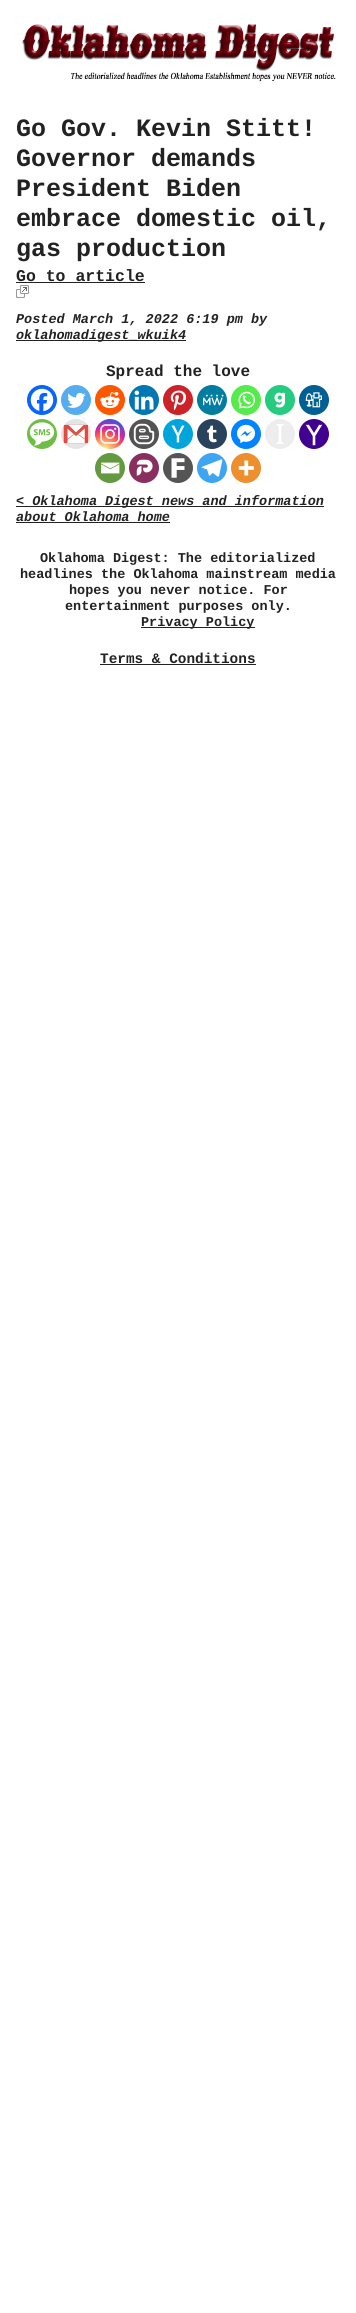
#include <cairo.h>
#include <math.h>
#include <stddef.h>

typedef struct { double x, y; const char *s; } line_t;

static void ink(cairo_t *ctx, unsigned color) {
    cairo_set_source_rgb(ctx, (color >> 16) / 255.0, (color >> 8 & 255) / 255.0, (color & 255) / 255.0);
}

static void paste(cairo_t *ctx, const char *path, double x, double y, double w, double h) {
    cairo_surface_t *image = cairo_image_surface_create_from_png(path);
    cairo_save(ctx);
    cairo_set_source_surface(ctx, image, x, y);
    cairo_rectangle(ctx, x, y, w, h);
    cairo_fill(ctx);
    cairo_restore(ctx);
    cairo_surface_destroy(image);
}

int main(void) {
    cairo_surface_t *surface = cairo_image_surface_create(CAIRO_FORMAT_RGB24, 356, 2313);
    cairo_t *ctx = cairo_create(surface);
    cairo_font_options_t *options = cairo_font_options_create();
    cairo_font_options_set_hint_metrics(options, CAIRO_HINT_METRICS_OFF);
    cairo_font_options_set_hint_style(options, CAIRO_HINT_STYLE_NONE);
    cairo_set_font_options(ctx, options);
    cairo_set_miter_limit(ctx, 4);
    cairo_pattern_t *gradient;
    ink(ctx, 0xFFFFFF);
    cairo_paint(ctx);
    paste(ctx, "media/1.png", 21, 24, 315, 58);
    cairo_select_font_face(ctx, "Liberation Mono", CAIRO_FONT_SLANT_NORMAL, CAIRO_FONT_WEIGHT_BOLD);
    cairo_set_font_size(ctx, 25);
    ink(ctx, 0x222222);
    {
        static const line_t items[] = {
            {16, 136, "Go Gov. Kevin Stitt!"},
            {16, 166, "Governor demands"},
            {16, 196, "President Biden"},
            {16, 226, "embrace domestic oil,"},
            {16, 256, "gas production"},
        };
        for (size_t i = 0; i < sizeof items / sizeof *items; i++) {
            cairo_move_to(ctx, items[i].x, items[i].y);
            cairo_show_text(ctx, items[i].s);
        }
    }
    cairo_set_font_size(ctx, 16.5);
    cairo_move_to(ctx, 16, 281);
    cairo_show_text(ctx, "Go to article");
    cairo_rectangle(ctx, 16, 282, 129, 1);
    cairo_fill(ctx);
    paste(ctx, "media/2.png", 16, 285, 13, 13);
    cairo_select_font_face(ctx, "Liberation Mono", CAIRO_FONT_SLANT_ITALIC, CAIRO_FONT_WEIGHT_BOLD);
    cairo_set_font_size(ctx, 13.5);
    cairo_move_to(ctx, 16, 323);
    cairo_show_text(ctx, "Posted March 1, 2022 6:19 pm by");
    cairo_rectangle(ctx, 16, 340, 170, 1);
    cairo_fill(ctx);
    cairo_move_to(ctx, 16, 339);
    cairo_show_text(ctx, "oklahomadigest_wkuik4");
    cairo_select_font_face(ctx, "Liberation Mono", CAIRO_FONT_SLANT_NORMAL, CAIRO_FONT_WEIGHT_BOLD);
    cairo_set_font_size(ctx, 16);
    cairo_move_to(ctx, 106, 376);
    cairo_show_text(ctx, "Spread the love");
    ink(ctx, 0x0765FE);
    cairo_new_path(ctx);
    cairo_arc(ctx, 42, 400, 15, 0, 2 * M_PI);
    cairo_fill(ctx);
    paste(ctx, "media/3.png", 30, 388, 24, 24);
    ink(ctx, 0x55ACEE);
    cairo_arc(ctx, 76, 400, 15, 0, 2 * M_PI);
    cairo_fill(ctx);
    paste(ctx, "media/4.png", 67, 392, 19, 16);
    ink(ctx, 0xFF5700);
    cairo_arc(ctx, 110, 400, 15, 0, 2 * M_PI);
    cairo_fill(ctx);
    paste(ctx, "media/5.png", 100, 391, 20, 18);
    ink(ctx, 0x0077B5);
    cairo_arc(ctx, 144, 400, 15, 0, 2 * M_PI);
    cairo_fill(ctx);
    paste(ctx, "media/6.png", 134, 390, 20, 20);
    ink(ctx, 0xCC2329);
    cairo_arc(ctx, 178, 400, 15, 0, 2 * M_PI);
    cairo_fill(ctx);
    paste(ctx, "media/7.png", 170, 390, 17, 21);
    ink(ctx, 0x007DA1);
    cairo_arc(ctx, 212, 400, 15, 0, 2 * M_PI);
    cairo_fill(ctx);
    paste(ctx, "media/8.png", 203, 394, 21, 12);
    ink(ctx, 0x55EB4C);
    cairo_arc(ctx, 246, 400, 15, 0, 2 * M_PI);
    cairo_fill(ctx);
    paste(ctx, "media/9.png", 238, 391, 17, 18);
    ink(ctx, 0x25CC80);
    cairo_arc(ctx, 280, 400, 15, 0, 2 * M_PI);
    cairo_fill(ctx);
    paste(ctx, "media/10.png", 274, 392, 12, 16);
    ink(ctx, 0x006094);
    cairo_arc(ctx, 314, 400, 15, 0, 2 * M_PI);
    cairo_fill(ctx);
    paste(ctx, "media/11.png", 305, 392, 17, 16);
    ink(ctx, 0x6EBE45);
    cairo_arc(ctx, 42, 434, 15, 0, 2 * M_PI);
    cairo_fill(ctx);
    paste(ctx, "media/12.png", 29, 422, 26, 24);
    ink(ctx, 0xE5E5E5);
    cairo_arc(ctx, 76, 434, 15, 0, 2 * M_PI);
    cairo_fill(ctx);
    paste(ctx, "media/13.png", 63, 424, 26, 20);
    gradient = cairo_pattern_create_radial(104, 451, 0, 104, 451, 38);
    cairo_pattern_add_color_stop_rgba(gradient, 0, 0.992, 0.957, 0.592, 1);
    cairo_pattern_add_color_stop_rgba(gradient, 0.05, 0.992, 0.957, 0.592, 1);
    cairo_pattern_add_color_stop_rgba(gradient, 0.45, 0.992, 0.349, 0.286, 1);
    cairo_pattern_add_color_stop_rgba(gradient, 0.6, 0.839, 0.141, 0.624, 1);
    cairo_pattern_add_color_stop_rgba(gradient, 0.9, 0.157, 0.353, 0.922, 1);
    cairo_set_source(ctx, gradient);
    cairo_pattern_destroy(gradient);
    cairo_arc(ctx, 110, 434, 15, 0, 2 * M_PI);
    cairo_fill(ctx);
    paste(ctx, "media/14.png", 100, 424, 20, 20);
    ink(ctx, 0x535353);
    cairo_arc(ctx, 144, 434, 15, 0, 2 * M_PI);
    cairo_fill(ctx);
    paste(ctx, "media/15.png", 133, 423, 22, 22);
    ink(ctx, 0x00A6DB);
    cairo_arc(ctx, 178, 434, 15, 0, 2 * M_PI);
    cairo_fill(ctx);
    paste(ctx, "media/16.png", 171, 425, 14, 18);
    ink(ctx, 0x29435D);
    cairo_arc(ctx, 212, 434, 15, 0, 2 * M_PI);
    cairo_fill(ctx);
    paste(ctx, "media/17.png", 207, 425, 10, 18);
    ink(ctx, 0x0084FF);
    cairo_arc(ctx, 246, 434, 15, 0, 2 * M_PI);
    cairo_fill(ctx);
    paste(ctx, "media/18.png", 236, 424, 20, 20);
    ink(ctx, 0xEDEDED);
    cairo_arc(ctx, 280, 434, 15, 0, 2 * M_PI);
    cairo_fill(ctx);
    paste(ctx, "media/19.png", 276, 424, 8, 20);
    ink(ctx, 0x400090);
    cairo_arc(ctx, 314, 434, 15, 0, 2 * M_PI);
    cairo_fill(ctx);
    paste(ctx, "media/20.png", 305, 424, 18, 22);
    ink(ctx, 0x649A3F);
    cairo_arc(ctx, 110, 468, 15, 0, 2 * M_PI);
    cairo_fill(ctx);
    paste(ctx, "media/21.png", 101, 462, 19, 12);
    ink(ctx, 0x892E5E);
    cairo_arc(ctx, 144, 468, 15, 0, 2 * M_PI);
    cairo_fill(ctx);
    paste(ctx, "media/22.png", 136, 459, 17, 17);
    ink(ctx, 0x555555);
    cairo_arc(ctx, 178, 468, 15, 0, 2 * M_PI);
    cairo_fill(ctx);
    paste(ctx, "media/23.png", 171, 458, 14, 20);
    ink(ctx, 0x3DA5F1);
    cairo_arc(ctx, 212, 468, 15, 0, 2 * M_PI);
    cairo_fill(ctx);
    paste(ctx, "media/24.png", 201, 459, 22, 18);
    ink(ctx, 0xEE8E2D);
    cairo_arc(ctx, 246, 468, 15, 0, 2 * M_PI);
    cairo_fill(ctx);
    paste(ctx, "media/25.png", 238, 460, 16, 16);
    ink(ctx, 0x222222);
    cairo_rectangle(ctx, 16, 506, 308, 1);
    cairo_fill(ctx);
    cairo_select_font_face(ctx, "Liberation Mono", CAIRO_FONT_SLANT_ITALIC, CAIRO_FONT_WEIGHT_BOLD);
    cairo_set_font_size(ctx, 13.5);
    cairo_move_to(ctx, 16, 505);
    cairo_show_text(ctx, "< Oklahoma Digest news and information");
    cairo_move_to(ctx, 16, 521);
    cairo_show_text(ctx, "about Oklahoma home");
    cairo_rectangle(ctx, 16, 522, 154, 1);
    cairo_fill(ctx);
    cairo_select_font_face(ctx, "Liberation Mono", CAIRO_FONT_SLANT_NORMAL, CAIRO_FONT_WEIGHT_BOLD);
    {
        static const line_t items[] = {
            {40, 562, "Oklahoma Digest: The editorialized"},
            {20, 578, "headlines the Oklahoma mainstream media"},
            {69, 594, "hopes you never notice. For"},
            {65, 610, "entertainment purposes only."},
        };
        for (size_t i = 0; i < sizeof items / sizeof *items; i++) {
            cairo_move_to(ctx, items[i].x, items[i].y);
            cairo_show_text(ctx, items[i].s);
        }
    }
    cairo_rectangle(ctx, 141, 627, 114, 1);
    cairo_fill(ctx);
    cairo_move_to(ctx, 141, 626);
    cairo_show_text(ctx, "Privacy Policy");
    cairo_set_font_size(ctx, 14.4);
    cairo_move_to(ctx, 100, 663);
    cairo_show_text(ctx, "Terms & Conditions");
    cairo_rectangle(ctx, 100, 664, 156, 1);
    cairo_fill(ctx);
    cairo_surface_write_to_png(surface, "image.png");
    cairo_font_options_destroy(options);
    cairo_destroy(ctx);
    cairo_surface_destroy(surface);
    return 0;
}
